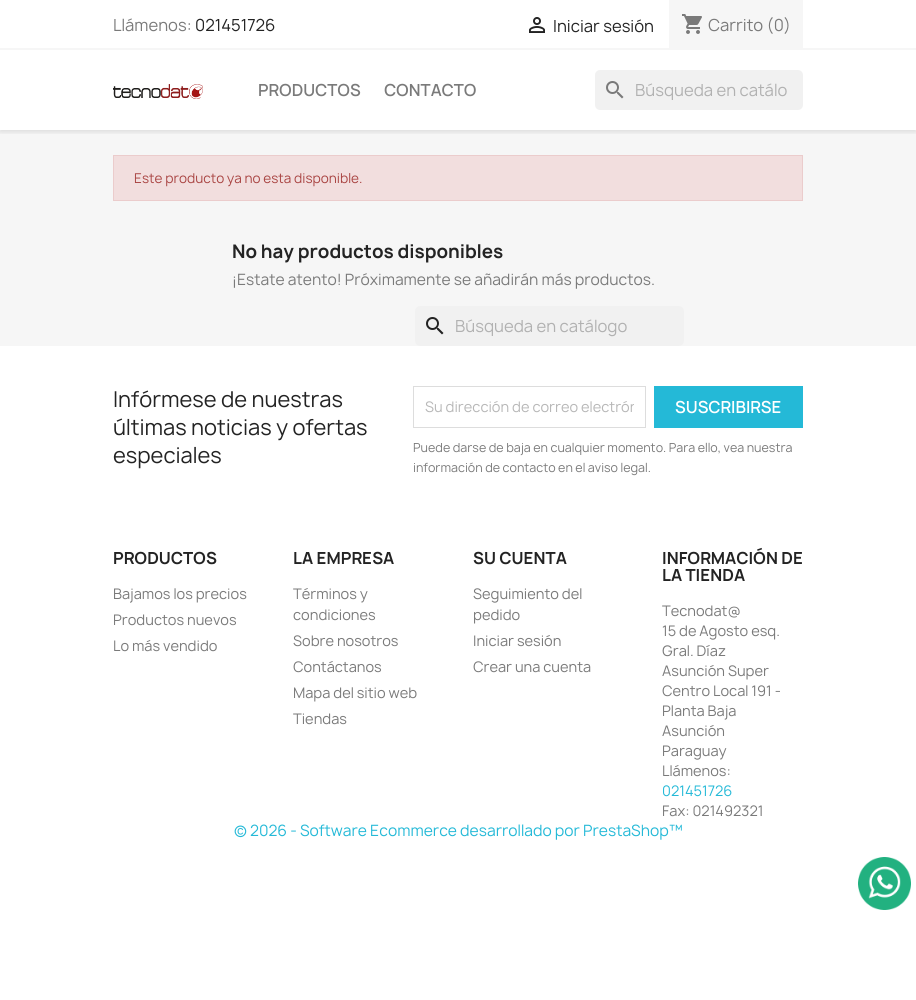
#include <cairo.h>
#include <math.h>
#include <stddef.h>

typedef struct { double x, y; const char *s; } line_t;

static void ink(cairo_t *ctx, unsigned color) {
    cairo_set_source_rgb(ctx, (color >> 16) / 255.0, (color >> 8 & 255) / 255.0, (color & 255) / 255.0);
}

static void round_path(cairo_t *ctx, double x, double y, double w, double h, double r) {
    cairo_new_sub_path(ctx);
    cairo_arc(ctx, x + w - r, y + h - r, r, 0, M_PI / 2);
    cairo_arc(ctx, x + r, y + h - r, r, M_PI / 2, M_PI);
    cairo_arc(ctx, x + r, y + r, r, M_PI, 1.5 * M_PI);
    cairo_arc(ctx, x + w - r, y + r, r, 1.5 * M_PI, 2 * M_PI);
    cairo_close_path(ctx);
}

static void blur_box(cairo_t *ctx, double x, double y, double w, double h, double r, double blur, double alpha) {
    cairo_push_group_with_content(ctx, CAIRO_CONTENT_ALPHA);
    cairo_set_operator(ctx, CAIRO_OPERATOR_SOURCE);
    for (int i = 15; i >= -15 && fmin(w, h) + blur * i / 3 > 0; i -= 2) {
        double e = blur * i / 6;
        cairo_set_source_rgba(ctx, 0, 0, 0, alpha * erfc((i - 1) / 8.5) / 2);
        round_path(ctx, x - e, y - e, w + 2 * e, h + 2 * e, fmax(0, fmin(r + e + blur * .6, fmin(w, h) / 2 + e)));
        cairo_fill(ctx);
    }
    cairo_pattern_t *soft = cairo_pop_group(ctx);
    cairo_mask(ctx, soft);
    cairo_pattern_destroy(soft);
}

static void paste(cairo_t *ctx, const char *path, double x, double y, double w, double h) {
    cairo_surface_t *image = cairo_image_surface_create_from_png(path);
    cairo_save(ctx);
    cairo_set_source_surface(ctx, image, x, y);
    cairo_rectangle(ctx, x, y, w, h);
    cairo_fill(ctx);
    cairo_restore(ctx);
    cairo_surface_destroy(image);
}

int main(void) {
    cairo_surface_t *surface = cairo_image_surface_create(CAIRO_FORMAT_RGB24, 916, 1000);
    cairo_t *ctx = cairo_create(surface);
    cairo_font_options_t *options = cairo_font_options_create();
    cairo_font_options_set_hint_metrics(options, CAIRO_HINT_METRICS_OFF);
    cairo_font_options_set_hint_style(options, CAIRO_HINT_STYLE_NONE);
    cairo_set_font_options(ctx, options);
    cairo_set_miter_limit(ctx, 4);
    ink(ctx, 0xFFFFFF);
    cairo_paint(ctx);
    ink(ctx, 0xF6F6F6);
    cairo_rectangle(ctx, 0, 130, 916, 216);
    cairo_fill(ctx);
    cairo_save(ctx);
    cairo_rectangle(ctx, 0, 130, 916, 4);
    cairo_clip(ctx);
    ink(ctx, 0x000000);
    blur_box(ctx, 0, 2, 916, 130, 0, 2.5, 0.11);
    cairo_restore(ctx);
    cairo_rectangle(ctx, 0, 48, 916, 2);
    cairo_fill(ctx);
    cairo_select_font_face(ctx, "Manrope", CAIRO_FONT_SLANT_NORMAL, CAIRO_FONT_WEIGHT_NORMAL);
    cairo_set_font_size(ctx, 16);
    ink(ctx, 0x7A7A7A);
    cairo_move_to(ctx, 113, 31);
    cairo_show_text(ctx, "Llámenos:");
    ink(ctx, 0x232323);
    cairo_move_to(ctx, 195, 31);
    cairo_show_text(ctx, "021451726");
    paste(ctx, "media/1.png", 529, 17, 16, 16);
    cairo_move_to(ctx, 553, 32);
    cairo_show_text(ctx, "Iniciar sesión");
    ink(ctx, 0xF6F6F6);
    cairo_rectangle(ctx, 669, 0, 134, 48);
    cairo_fill(ctx);
    paste(ctx, "media/2.png", 682, 14, 20, 20);
    ink(ctx, 0x7A7A7A);
    cairo_move_to(ctx, 708, 31);
    cairo_show_text(ctx, "Carrito (0)");
    paste(ctx, "media/3.png", 113, 84, 90, 15);
    cairo_select_font_face(ctx, "Manrope SemiBold", CAIRO_FONT_SLANT_NORMAL, CAIRO_FONT_WEIGHT_NORMAL);
    cairo_move_to(ctx, 258, 96);
    cairo_show_text(ctx, "PRODUCTOS");
    cairo_move_to(ctx, 384, 96);
    cairo_show_text(ctx, "CONTACTO");
    ink(ctx, 0xF1F1F1);
    round_path(ctx, 595, 70, 208, 40, 5);
    cairo_fill(ctx);
    paste(ctx, "media/4.png", 606, 81, 18, 18);
    cairo_select_font_face(ctx, "Manrope", CAIRO_FONT_SLANT_NORMAL, CAIRO_FONT_WEIGHT_NORMAL);
    ink(ctx, 0xB1B1B1);
    cairo_move_to(ctx, 635, 96);
    cairo_show_text(ctx, "Búsqueda en catálo");
    ink(ctx, 0xF2DEDE);
    cairo_rectangle(ctx, 113.5, 155.5, 689, 45);
    cairo_fill_preserve(ctx);
    ink(ctx, 0xEBCCCC);
    cairo_set_line_width(ctx, 1);
    cairo_stroke(ctx);
    cairo_set_font_size(ctx, 13);
    ink(ctx, 0xA94442);
    cairo_move_to(ctx, 134, 183);
    cairo_show_text(ctx, "Este producto ya no esta disponible.");
    cairo_select_font_face(ctx, "Manrope", CAIRO_FONT_SLANT_NORMAL, CAIRO_FONT_WEIGHT_BOLD);
    cairo_set_font_size(ctx, 18);
    ink(ctx, 0x232323);
    cairo_move_to(ctx, 232, 258);
    cairo_show_text(ctx, "No hay productos disponibles");
    cairo_select_font_face(ctx, "Manrope", CAIRO_FONT_SLANT_NORMAL, CAIRO_FONT_WEIGHT_NORMAL);
    cairo_set_font_size(ctx, 15);
    ink(ctx, 0x7A7A7A);
    cairo_move_to(ctx, 232, 285);
    cairo_show_text(ctx, "¡Estate atento! Próximamente se añadirán más productos.");
    ink(ctx, 0xF1F1F1);
    round_path(ctx, 415, 306, 269, 40, 5);
    cairo_fill(ctx);
    paste(ctx, "media/5.png", 426, 317, 18, 18);
    cairo_set_font_size(ctx, 16);
    ink(ctx, 0xB1B1B1);
    cairo_move_to(ctx, 455, 332);
    cairo_show_text(ctx, "Búsqueda en catálogo");
    cairo_set_font_size(ctx, 21);
    ink(ctx, 0x232323);
    {
        static const line_t items[] = {
            {113, 407, "Infórmese de nuestras"},
            {113, 435, "últimas noticias y ofertas"},
            {113, 463, "especiales"},
        };
        for (size_t i = 0; i < sizeof items / sizeof *items; i++) {
            cairo_move_to(ctx, items[i].x, items[i].y);
            cairo_show_text(ctx, items[i].s);
        }
    }
    cairo_rectangle(ctx, 413.5, 386.5, 232, 41);
    ink(ctx, 0xDDDDDD);
    cairo_stroke(ctx);
    cairo_save(ctx);
    cairo_rectangle(ctx, 425, 395, 209, 23);
    cairo_clip(ctx);
    cairo_set_font_size(ctx, 14);
    ink(ctx, 0xB7B7B7);
    cairo_move_to(ctx, 425, 412);
    cairo_show_text(ctx, "Su dirección de correo electrón");
    cairo_restore(ctx);
    ink(ctx, 0x24B9D7);
    cairo_rectangle(ctx, 654, 386, 149, 42);
    cairo_fill(ctx);
    cairo_select_font_face(ctx, "Manrope SemiBold", CAIRO_FONT_SLANT_NORMAL, CAIRO_FONT_WEIGHT_NORMAL);
    cairo_set_font_size(ctx, 16);
    ink(ctx, 0xFFFFFF);
    cairo_move_to(ctx, 675, 413);
    cairo_show_text(ctx, "SUSCRIBIRSE");
    cairo_select_font_face(ctx, "Manrope", CAIRO_FONT_SLANT_NORMAL, CAIRO_FONT_WEIGHT_NORMAL);
    cairo_set_font_size(ctx, 12);
    ink(ctx, 0x7A7A7A);
    cairo_move_to(ctx, 413, 452);
    cairo_show_text(ctx, "Puede darse de baja en cualquier momento. Para ello, vea nuestra");
    cairo_move_to(ctx, 413, 472);
    cairo_show_text(ctx, "información de contacto en el aviso legal.");
    cairo_select_font_face(ctx, "Manrope", CAIRO_FONT_SLANT_NORMAL, CAIRO_FONT_WEIGHT_BOLD);
    cairo_set_font_size(ctx, 16);
    ink(ctx, 0x232323);
    cairo_move_to(ctx, 113, 564);
    cairo_show_text(ctx, "PRODUCTOS");
    cairo_select_font_face(ctx, "Manrope", CAIRO_FONT_SLANT_NORMAL, CAIRO_FONT_WEIGHT_NORMAL);
    cairo_set_font_size(ctx, 14);
    ink(ctx, 0x7A7A7A);
    {
        static const line_t items[] = {
            {113, 599, "Bajamos los precios"},
            {113, 625, "Productos nuevos"},
            {113, 651, "Lo más vendido"},
        };
        for (size_t i = 0; i < sizeof items / sizeof *items; i++) {
            cairo_move_to(ctx, items[i].x, items[i].y);
            cairo_show_text(ctx, items[i].s);
        }
    }
    cairo_select_font_face(ctx, "Manrope", CAIRO_FONT_SLANT_NORMAL, CAIRO_FONT_WEIGHT_BOLD);
    cairo_set_font_size(ctx, 16);
    ink(ctx, 0x232323);
    cairo_move_to(ctx, 293, 564);
    cairo_show_text(ctx, "LA EMPRESA");
    cairo_select_font_face(ctx, "Manrope", CAIRO_FONT_SLANT_NORMAL, CAIRO_FONT_WEIGHT_NORMAL);
    cairo_set_font_size(ctx, 14);
    ink(ctx, 0x7A7A7A);
    {
        static const line_t items[] = {
            {293, 599, "Términos y"},
            {293, 620, "condiciones"},
            {293, 646, "Sobre nosotros"},
            {293, 672, "Contáctanos"},
            {293, 698, "Mapa del sitio web"},
            {293, 724, "Tiendas"},
        };
        for (size_t i = 0; i < sizeof items / sizeof *items; i++) {
            cairo_move_to(ctx, items[i].x, items[i].y);
            cairo_show_text(ctx, items[i].s);
        }
    }
    cairo_select_font_face(ctx, "Manrope", CAIRO_FONT_SLANT_NORMAL, CAIRO_FONT_WEIGHT_BOLD);
    cairo_set_font_size(ctx, 16);
    ink(ctx, 0x232323);
    cairo_move_to(ctx, 473, 564);
    cairo_show_text(ctx, "SU CUENTA");
    cairo_select_font_face(ctx, "Manrope", CAIRO_FONT_SLANT_NORMAL, CAIRO_FONT_WEIGHT_NORMAL);
    cairo_set_font_size(ctx, 14);
    ink(ctx, 0x7A7A7A);
    {
        static const line_t items[] = {
            {473, 599, "Seguimiento del"},
            {473, 620, "pedido"},
            {473, 646, "Iniciar sesión"},
            {473, 672, "Crear una cuenta"},
        };
        for (size_t i = 0; i < sizeof items / sizeof *items; i++) {
            cairo_move_to(ctx, items[i].x, items[i].y);
            cairo_show_text(ctx, items[i].s);
        }
    }
    cairo_select_font_face(ctx, "Manrope", CAIRO_FONT_SLANT_NORMAL, CAIRO_FONT_WEIGHT_BOLD);
    cairo_set_font_size(ctx, 16);
    ink(ctx, 0x232323);
    cairo_move_to(ctx, 662, 564);
    cairo_show_text(ctx, "INFORMACIÓN DE");
    cairo_move_to(ctx, 662, 581);
    cairo_show_text(ctx, "LA TIENDA");
    cairo_select_font_face(ctx, "Manrope", CAIRO_FONT_SLANT_NORMAL, CAIRO_FONT_WEIGHT_NORMAL);
    cairo_set_font_size(ctx, 14);
    ink(ctx, 0x7A7A7A);
    {
        static const line_t items[] = {
            {662, 616, "Tecnodat@"},
            {662, 636, "15 de Agosto esq."},
            {662, 656, "Gral. Díaz"},
            {662, 676, "Asunción Super"},
            {662, 696, "Centro Local 191 -"},
            {662, 716, "Planta Baja"},
            {662, 736, "Asunción"},
            {662, 756, "Paraguay"},
            {662, 776, "Llámenos:"},
        };
        for (size_t i = 0; i < sizeof items / sizeof *items; i++) {
            cairo_move_to(ctx, items[i].x, items[i].y);
            cairo_show_text(ctx, items[i].s);
        }
    }
    ink(ctx, 0x24B9D7);
    cairo_move_to(ctx, 662, 796);
    cairo_show_text(ctx, "021451726");
    ink(ctx, 0x7A7A7A);
    cairo_move_to(ctx, 662, 816);
    cairo_show_text(ctx, "Fax: 021492321");
    cairo_set_font_size(ctx, 15);
    ink(ctx, 0x24B9D7);
    cairo_move_to(ctx, 234, 836);
    cairo_show_text(ctx, "© 2026 - Software Ecommerce desarrollado por PrestaShop™");
    paste(ctx, "media/6.png", 858, 857, 53, 53);
    cairo_surface_write_to_png(surface, "image.png");
    cairo_font_options_destroy(options);
    cairo_destroy(ctx);
    cairo_surface_destroy(surface);
    return 0;
}
